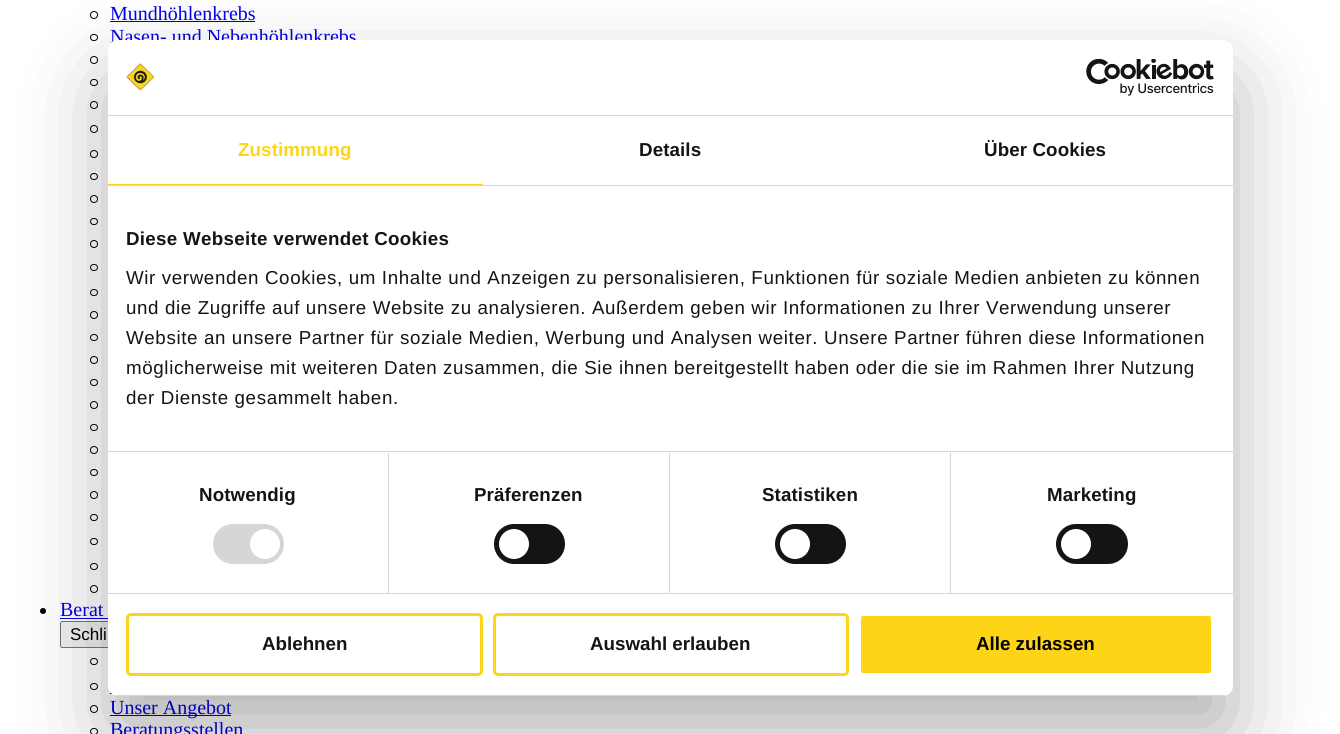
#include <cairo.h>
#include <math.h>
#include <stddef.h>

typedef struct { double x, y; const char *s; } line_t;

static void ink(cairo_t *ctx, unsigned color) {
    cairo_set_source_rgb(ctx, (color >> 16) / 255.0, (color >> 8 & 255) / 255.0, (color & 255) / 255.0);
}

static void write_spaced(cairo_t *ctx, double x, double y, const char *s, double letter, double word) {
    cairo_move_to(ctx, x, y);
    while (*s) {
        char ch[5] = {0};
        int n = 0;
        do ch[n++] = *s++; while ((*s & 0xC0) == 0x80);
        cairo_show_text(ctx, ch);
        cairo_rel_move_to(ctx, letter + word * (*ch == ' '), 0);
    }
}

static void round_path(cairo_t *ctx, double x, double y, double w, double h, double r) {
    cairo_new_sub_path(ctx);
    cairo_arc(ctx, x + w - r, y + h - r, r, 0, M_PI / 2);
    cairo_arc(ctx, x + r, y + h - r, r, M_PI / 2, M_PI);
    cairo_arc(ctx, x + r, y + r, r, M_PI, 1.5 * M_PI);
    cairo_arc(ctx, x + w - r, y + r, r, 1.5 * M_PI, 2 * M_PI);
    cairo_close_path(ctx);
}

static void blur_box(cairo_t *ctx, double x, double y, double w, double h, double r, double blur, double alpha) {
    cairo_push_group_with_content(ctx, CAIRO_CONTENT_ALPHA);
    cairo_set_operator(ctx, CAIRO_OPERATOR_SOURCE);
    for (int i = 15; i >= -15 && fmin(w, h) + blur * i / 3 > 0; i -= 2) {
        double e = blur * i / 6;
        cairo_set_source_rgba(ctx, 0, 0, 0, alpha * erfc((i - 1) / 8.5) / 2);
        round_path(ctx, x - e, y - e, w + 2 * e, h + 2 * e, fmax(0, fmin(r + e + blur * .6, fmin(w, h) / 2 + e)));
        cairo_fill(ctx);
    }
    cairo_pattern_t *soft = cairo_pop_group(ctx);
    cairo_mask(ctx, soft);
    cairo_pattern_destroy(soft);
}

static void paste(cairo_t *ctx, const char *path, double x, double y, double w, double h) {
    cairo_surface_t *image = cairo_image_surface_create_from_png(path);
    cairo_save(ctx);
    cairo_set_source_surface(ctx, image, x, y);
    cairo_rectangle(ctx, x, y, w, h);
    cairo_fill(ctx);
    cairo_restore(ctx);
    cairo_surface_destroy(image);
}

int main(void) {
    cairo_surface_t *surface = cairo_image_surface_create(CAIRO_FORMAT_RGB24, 1340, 734);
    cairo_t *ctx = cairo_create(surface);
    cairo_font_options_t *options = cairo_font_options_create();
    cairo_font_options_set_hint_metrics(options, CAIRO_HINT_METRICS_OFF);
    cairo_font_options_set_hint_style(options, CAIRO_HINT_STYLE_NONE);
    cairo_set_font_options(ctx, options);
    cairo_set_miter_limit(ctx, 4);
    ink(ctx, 0xFFFFFF);
    cairo_paint(ctx);
    cairo_arc(ctx, 94, 15, 3.5, 0, 2 * M_PI);
    ink(ctx, 0x000000);
    cairo_set_line_width(ctx, 1);
    cairo_stroke(ctx);
    cairo_select_font_face(ctx, "Liberation Serif", CAIRO_FONT_SLANT_NORMAL, CAIRO_FONT_WEIGHT_NORMAL);
    cairo_set_font_size(ctx, 20);
    ink(ctx, 0x0000EE);
    cairo_move_to(ctx, 110, 20);
    cairo_show_text(ctx, "Mundhöhlenkrebs");
    cairo_rectangle(ctx, 110, 21, 145, 1);
    cairo_fill(ctx);
    round_path(ctx, 90.5, 34.5, 7, 6, 3);
    ink(ctx, 0x000000);
    cairo_stroke(ctx);
    ink(ctx, 0x0000EE);
    cairo_move_to(ctx, 110, 43);
    cairo_show_text(ctx, "Nasen- und Nebenhöhlenkrebs");
    cairo_new_path(ctx);
    cairo_arc(ctx, 94, 60, 3.5, 0, 2 * M_PI);
    ink(ctx, 0x000000);
    cairo_stroke(ctx);
    round_path(ctx, 90.5, 79.5, 7, 6, 3);
    cairo_stroke(ctx);
    cairo_arc(ctx, 94, 105, 3.5, 0, 2 * M_PI);
    cairo_stroke(ctx);
    cairo_arc(ctx, 94, 129, 3.5, 0, 2 * M_PI);
    cairo_stroke(ctx);
    cairo_arc(ctx, 94, 154, 3.5, 0, 2 * M_PI);
    cairo_stroke(ctx);
    round_path(ctx, 90.5, 173.5, 7, 6, 3);
    cairo_stroke(ctx);
    cairo_arc(ctx, 94, 199, 3.5, 0, 2 * M_PI);
    cairo_stroke(ctx);
    round_path(ctx, 90.5, 218.5, 7, 6, 3);
    cairo_stroke(ctx);
    cairo_arc(ctx, 94, 244, 3.5, 0, 2 * M_PI);
    cairo_stroke(ctx);
    round_path(ctx, 90.5, 264.5, 7, 6, 3);
    cairo_stroke(ctx);
    round_path(ctx, 90.5, 289.5, 7, 6, 3);
    cairo_stroke(ctx);
    cairo_arc(ctx, 94, 315, 3.5, 0, 2 * M_PI);
    cairo_stroke(ctx);
    round_path(ctx, 90.5, 334.5, 7, 6, 3);
    cairo_stroke(ctx);
    cairo_arc(ctx, 94, 360, 3.5, 0, 2 * M_PI);
    cairo_stroke(ctx);
    round_path(ctx, 90.5, 379.5, 7, 6, 3);
    cairo_stroke(ctx);
    cairo_arc(ctx, 94, 405, 3.5, 0, 2 * M_PI);
    cairo_stroke(ctx);
    round_path(ctx, 90.5, 424.5, 7, 6, 3);
    cairo_stroke(ctx);
    cairo_arc(ctx, 94, 450, 3.5, 0, 2 * M_PI);
    cairo_stroke(ctx);
    round_path(ctx, 90.5, 469.5, 7, 6, 3);
    cairo_stroke(ctx);
    cairo_arc(ctx, 94, 495, 3.5, 0, 2 * M_PI);
    cairo_stroke(ctx);
    round_path(ctx, 90.5, 514.5, 7, 6, 3);
    cairo_stroke(ctx);
    round_path(ctx, 90.5, 538.5, 7, 6, 3);
    cairo_stroke(ctx);
    round_path(ctx, 90.5, 563.5, 7, 6, 3);
    cairo_stroke(ctx);
    cairo_arc(ctx, 94, 589, 3.5, 0, 2 * M_PI);
    cairo_stroke(ctx);
    cairo_arc(ctx, 43, 611, 3, 0, 2 * M_PI);
    cairo_fill(ctx);
    ink(ctx, 0x0000EE);
    cairo_move_to(ctx, 60, 616);
    cairo_show_text(ctx, "Berat");
    cairo_rectangle(ctx, 60, 618, 48, 1);
    cairo_fill(ctx);
    ink(ctx, 0xEFEFEF);
    round_path(ctx, 60.5, 621.5, 93, 26, 2);
    cairo_fill_preserve(ctx);
    ink(ctx, 0x767676);
    cairo_stroke(ctx);
    cairo_select_font_face(ctx, "Liberation Sans", CAIRO_FONT_SLANT_NORMAL, CAIRO_FONT_WEIGHT_NORMAL);
    cairo_set_font_size(ctx, 17);
    ink(ctx, 0x000000);
    cairo_move_to(ctx, 70, 640);
    cairo_show_text(ctx, "Schli");
    round_path(ctx, 90.5, 658.5, 7, 6, 3);
    cairo_stroke(ctx);
    round_path(ctx, 90.5, 683.5, 7, 6, 3);
    cairo_stroke(ctx);
    ink(ctx, 0x0000EE);
    cairo_rectangle(ctx, 110, 693, 2, 1);
    cairo_fill(ctx);
    cairo_arc(ctx, 94, 709, 3.5, 0, 2 * M_PI);
    ink(ctx, 0x000000);
    cairo_stroke(ctx);
    ink(ctx, 0x0000EE);
    cairo_rectangle(ctx, 110, 715, 121, 1);
    cairo_fill(ctx);
    cairo_select_font_face(ctx, "Liberation Serif", CAIRO_FONT_SLANT_NORMAL, CAIRO_FONT_WEIGHT_NORMAL);
    cairo_set_font_size(ctx, 20);
    cairo_move_to(ctx, 110, 714);
    cairo_show_text(ctx, "Unser Angebot");
    round_path(ctx, 90.5, 728.5, 7, 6, 3);
    ink(ctx, 0x000000);
    cairo_stroke(ctx);
    ink(ctx, 0x0000EE);
    cairo_move_to(ctx, 110, 736);
    cairo_show_text(ctx, "Beratungsstellen");
    ink(ctx, 0x000000);
    blur_box(ctx, 108, 80, 1125, 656, 10, 42.5, 0.3);
    ink(ctx, 0xFFFFFF);
    round_path(ctx, 108, 40, 1125, 656, 10);
    cairo_fill(ctx);
    ink(ctx, 0xD6D6D6);
    cairo_rectangle(ctx, 108, 115, 1125, 1);
    cairo_fill(ctx);
    paste(ctx, "media/1.png", 126, 63, 29, 28);
    paste(ctx, "media/2.png", 1086, 59, 128, 37);
    cairo_rectangle(ctx, 108, 185, 1125, 1);
    cairo_fill(ctx);
    ink(ctx, 0xFDD416);
    cairo_rectangle(ctx, 108, 184, 375, 1);
    cairo_fill(ctx);
    cairo_select_font_face(ctx, "Liberation Sans", CAIRO_FONT_SLANT_NORMAL, CAIRO_FONT_WEIGHT_BOLD);
    cairo_set_font_size(ctx, 18.75);
    write_spaced(ctx, 238, 156, "Zustimmung", 0.1, 0);
    ink(ctx, 0x141414);
    write_spaced(ctx, 639, 156, "Details", 0.1, 0);
    write_spaced(ctx, 984, 156, "Über Cookies", 0.1, 0);
    ink(ctx, 0xD6D6D6);
    cairo_rectangle(ctx, 108, 451, 1125, 1);
    cairo_fill(ctx);
    ink(ctx, 0x141414);
    write_spaced(ctx, 126, 245, "Diese Webseite verwendet Cookies", 0.3, 0);
    cairo_select_font_face(ctx, "Liberation Sans", CAIRO_FONT_SLANT_NORMAL, CAIRO_FONT_WEIGHT_NORMAL);
    {
        static const line_t items[] = {
            {126, 284, "Wir verwenden Cookies, um Inhalte und Anzeigen zu personalisieren, Funktionen für soziale Medien anbieten zu können"},
            {126, 314, "und die Zugriffe auf unsere Website zu analysieren. Außerdem geben wir Informationen zu Ihrer Verwendung unserer"},
            {126, 344, "Website an unsere Partner für soziale Medien, Werbung und Analysen weiter. Unsere Partner führen diese Informationen"},
            {126, 374, "möglicherweise mit weiteren Daten zusammen, die Sie ihnen bereitgestellt haben oder die sie im Rahmen Ihrer Nutzung"},
            {126, 404, "der Dienste gesammelt haben."},
        };
        for (size_t i = 0; i < sizeof items / sizeof *items; i++) {
            write_spaced(ctx, items[i].x, items[i].y, items[i].s, 0.62, 0);
        }
    }
    ink(ctx, 0xD6D6D6);
    cairo_rectangle(ctx, 108, 593, 1125, 1);
    cairo_fill(ctx);
    cairo_rectangle(ctx, 388, 453, 1, 140);
    cairo_fill(ctx);
    cairo_select_font_face(ctx, "Liberation Sans", CAIRO_FONT_SLANT_NORMAL, CAIRO_FONT_WEIGHT_BOLD);
    ink(ctx, 0x141414);
    write_spaced(ctx, 199, 501, "Notwendig", 0.1, 0);
    ink(ctx, 0xD6D6D6);
    round_path(ctx, 213, 524, 71, 40, 20);
    cairo_fill(ctx);
    ink(ctx, 0xFFFFFF);
    cairo_arc(ctx, 265, 544, 15, 0, 2 * M_PI);
    cairo_fill(ctx);
    ink(ctx, 0xD6D6D6);
    cairo_rectangle(ctx, 669, 453, 1, 140);
    cairo_fill(ctx);
    ink(ctx, 0x141414);
    write_spaced(ctx, 474, 501, "Präferenzen", 0.1, 0);
    round_path(ctx, 494, 524, 71, 40, 20);
    cairo_fill(ctx);
    ink(ctx, 0xFFFFFF);
    cairo_arc(ctx, 514, 544, 15, 0, 2 * M_PI);
    cairo_fill(ctx);
    ink(ctx, 0xD6D6D6);
    cairo_rectangle(ctx, 950, 453, 1, 140);
    cairo_fill(ctx);
    ink(ctx, 0x141414);
    write_spaced(ctx, 762, 501, "Statistiken", 0.1, 0);
    round_path(ctx, 775, 524, 71, 40, 20);
    cairo_fill(ctx);
    ink(ctx, 0xFFFFFF);
    cairo_arc(ctx, 795, 544, 15, 0, 2 * M_PI);
    cairo_fill(ctx);
    ink(ctx, 0x141414);
    write_spaced(ctx, 1047, 501, "Marketing", 0.1, 0);
    round_path(ctx, 1056, 524, 72, 40, 20);
    cairo_fill(ctx);
    ink(ctx, 0xFFFFFF);
    cairo_arc(ctx, 1076, 544, 15, 0, 2 * M_PI);
    cairo_fill(ctx);
    cairo_save(ctx);
    round_path(ctx, 108, 40, 1125, 656, 10);
    cairo_clip(ctx);
    ink(ctx, 0xD6D6D6);
    cairo_rectangle(ctx, 108, 695, 1125, 1);
    cairo_fill(ctx);
    cairo_restore(ctx);
    round_path(ctx, 127.5, 614.5, 354, 60, 3.5);
    ink(ctx, 0xFDD416);
    cairo_set_line_width(ctx, 3);
    cairo_stroke(ctx);
    ink(ctx, 0x141414);
    cairo_move_to(ctx, 262, 650);
    cairo_show_text(ctx, "Ablehnen");
    round_path(ctx, 494.5, 614.5, 353, 60, 3.5);
    ink(ctx, 0xFDD416);
    cairo_stroke(ctx);
    ink(ctx, 0x141414);
    cairo_move_to(ctx, 590, 650);
    cairo_show_text(ctx, "Auswahl erlauben");
    ink(ctx, 0xFDD416);
    round_path(ctx, 859.5, 614.5, 353, 60, 3.5);
    cairo_fill_preserve(ctx);
    ink(ctx, 0xFFFFFF);
    cairo_stroke(ctx);
    ink(ctx, 0x000000);
    cairo_move_to(ctx, 976, 650);
    cairo_show_text(ctx, "Alle zulassen");
    cairo_surface_write_to_png(surface, "image.png");
    cairo_font_options_destroy(options);
    cairo_destroy(ctx);
    cairo_surface_destroy(surface);
    return 0;
}
